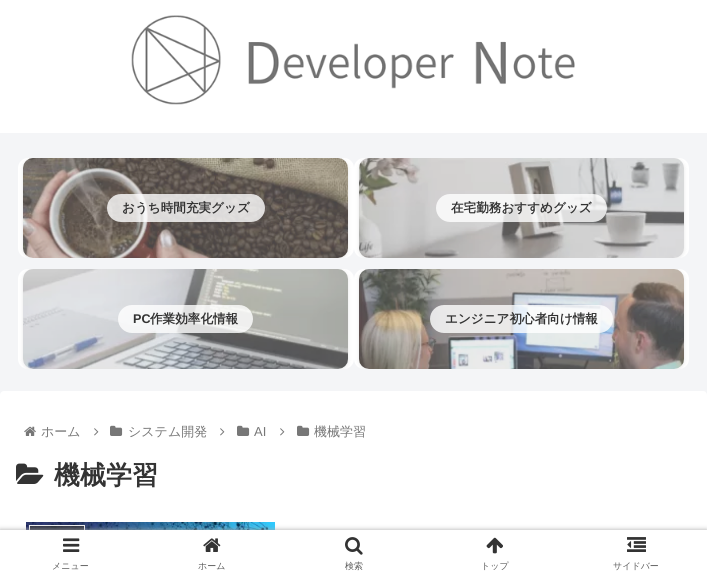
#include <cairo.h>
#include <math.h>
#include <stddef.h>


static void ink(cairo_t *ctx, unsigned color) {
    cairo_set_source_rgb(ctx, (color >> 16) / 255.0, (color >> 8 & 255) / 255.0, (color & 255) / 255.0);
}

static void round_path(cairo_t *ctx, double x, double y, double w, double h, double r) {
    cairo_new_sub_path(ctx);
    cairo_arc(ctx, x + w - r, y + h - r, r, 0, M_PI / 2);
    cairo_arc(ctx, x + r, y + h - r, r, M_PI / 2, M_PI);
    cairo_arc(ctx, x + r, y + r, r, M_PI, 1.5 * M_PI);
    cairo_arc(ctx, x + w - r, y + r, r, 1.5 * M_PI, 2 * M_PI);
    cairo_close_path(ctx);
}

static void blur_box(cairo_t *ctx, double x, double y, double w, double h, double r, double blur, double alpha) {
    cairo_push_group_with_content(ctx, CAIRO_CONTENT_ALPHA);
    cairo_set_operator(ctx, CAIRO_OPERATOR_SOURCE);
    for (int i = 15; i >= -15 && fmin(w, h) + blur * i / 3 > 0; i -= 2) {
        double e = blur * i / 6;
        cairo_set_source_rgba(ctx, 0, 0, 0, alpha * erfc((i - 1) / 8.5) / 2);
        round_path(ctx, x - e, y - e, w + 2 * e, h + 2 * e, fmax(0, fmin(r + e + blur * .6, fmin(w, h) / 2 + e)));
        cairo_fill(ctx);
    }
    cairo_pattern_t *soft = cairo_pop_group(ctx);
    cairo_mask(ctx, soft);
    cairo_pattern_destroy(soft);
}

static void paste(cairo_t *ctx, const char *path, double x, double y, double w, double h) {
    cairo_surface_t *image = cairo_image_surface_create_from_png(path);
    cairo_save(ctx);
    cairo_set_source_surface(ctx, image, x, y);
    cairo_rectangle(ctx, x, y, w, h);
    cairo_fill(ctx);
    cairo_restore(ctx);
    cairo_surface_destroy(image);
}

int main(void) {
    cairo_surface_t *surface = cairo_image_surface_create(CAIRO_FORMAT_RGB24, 707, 580);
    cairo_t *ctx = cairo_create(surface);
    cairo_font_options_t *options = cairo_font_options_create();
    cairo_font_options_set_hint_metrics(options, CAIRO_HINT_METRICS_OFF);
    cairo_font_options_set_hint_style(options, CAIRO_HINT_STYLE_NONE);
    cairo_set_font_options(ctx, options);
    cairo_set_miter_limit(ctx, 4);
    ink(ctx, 0xF4F5F7);
    cairo_paint(ctx);
    ink(ctx, 0xFFFFFF);
    cairo_rectangle(ctx, 0, 0, 707, 133);
    cairo_fill(ctx);
    paste(ctx, "media/1.png", 131, 15, 444, 90);
    round_path(ctx, 18, 158, 336, 100, 10);
    cairo_fill(ctx);
    round_path(ctx, 354, 158, 335, 100, 10);
    cairo_fill(ctx);
    cairo_save(ctx);
    round_path(ctx, 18, 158, 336, 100, 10);
    cairo_clip(ctx);
    cairo_set_fill_rule(ctx, CAIRO_FILL_RULE_EVEN_ODD);
    cairo_new_path(ctx);
    cairo_move_to(ctx, 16, 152);
    cairo_line_to(ctx, 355, 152);
    cairo_line_to(ctx, 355, 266);
    cairo_line_to(ctx, 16, 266);
    cairo_close_path(ctx);
    cairo_move_to(ctx, 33, 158);
    cairo_line_to(ctx, 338, 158);
    cairo_curve_to(ctx, 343.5, 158, 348, 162.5, 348, 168);
    cairo_line_to(ctx, 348, 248);
    cairo_curve_to(ctx, 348, 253.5, 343.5, 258, 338, 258);
    cairo_line_to(ctx, 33, 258);
    cairo_curve_to(ctx, 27.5, 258, 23, 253.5, 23, 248);
    cairo_line_to(ctx, 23, 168);
    cairo_curve_to(ctx, 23, 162.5, 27.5, 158, 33, 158);
    cairo_close_path(ctx);
    cairo_clip(ctx);
    ink(ctx, 0x000000);
    blur_box(ctx, 23, 159, 325, 100, 10, 2, 0.1);
    cairo_restore(ctx);
    paste(ctx, "media/2.png", 23, 158, 325, 100);
    cairo_set_source_rgba(ctx, 0.588, 0.588, 0.588, 0.2);
    round_path(ctx, 23, 158, 325, 100, 10);
    cairo_fill(ctx);
    cairo_set_source_rgba(ctx, 1, 1, 1, 0.8);
    round_path(ctx, 107, 194, 158, 28, 14);
    cairo_fill(ctx);
    cairo_select_font_face(ctx, "WenQuanYi Zen Hei", CAIRO_FONT_SLANT_NORMAL, CAIRO_FONT_WEIGHT_BOLD);
    cairo_set_font_size(ctx, 12.6);
    ink(ctx, 0x333333);
    cairo_move_to(ctx, 122, 212);
    cairo_show_text(ctx, "おうち時間充実グッズ");
    cairo_save(ctx);
    round_path(ctx, 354, 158, 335, 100, 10);
    cairo_clip(ctx);
    cairo_set_fill_rule(ctx, CAIRO_FILL_RULE_EVEN_ODD);
    cairo_new_path(ctx);
    cairo_move_to(ctx, 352, 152);
    cairo_line_to(ctx, 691, 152);
    cairo_line_to(ctx, 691, 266);
    cairo_line_to(ctx, 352, 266);
    cairo_close_path(ctx);
    cairo_move_to(ctx, 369, 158);
    cairo_line_to(ctx, 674, 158);
    cairo_curve_to(ctx, 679.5, 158, 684, 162.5, 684, 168);
    cairo_line_to(ctx, 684, 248);
    cairo_curve_to(ctx, 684, 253.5, 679.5, 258, 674, 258);
    cairo_line_to(ctx, 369, 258);
    cairo_curve_to(ctx, 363.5, 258, 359, 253.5, 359, 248);
    cairo_line_to(ctx, 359, 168);
    cairo_curve_to(ctx, 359, 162.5, 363.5, 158, 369, 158);
    cairo_close_path(ctx);
    cairo_clip(ctx);
    ink(ctx, 0x000000);
    blur_box(ctx, 359, 159, 325, 100, 10, 2, 0.1);
    cairo_restore(ctx);
    paste(ctx, "media/3.png", 359, 158, 325, 100);
    cairo_set_source_rgba(ctx, 0.588, 0.588, 0.588, 0.2);
    round_path(ctx, 359, 158, 325, 100, 10);
    cairo_fill(ctx);
    cairo_set_source_rgba(ctx, 1, 1, 1, 0.8);
    round_path(ctx, 436, 194, 171, 28, 14);
    cairo_fill(ctx);
    ink(ctx, 0x333333);
    cairo_move_to(ctx, 451, 212);
    cairo_show_text(ctx, "在宅勤務おすすめグッズ");
    ink(ctx, 0xFFFFFF);
    round_path(ctx, 18, 269, 336, 100, 10);
    cairo_fill(ctx);
    round_path(ctx, 354, 269, 335, 100, 10);
    cairo_fill(ctx);
    cairo_save(ctx);
    round_path(ctx, 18, 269, 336, 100, 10);
    cairo_clip(ctx);
    cairo_set_fill_rule(ctx, CAIRO_FILL_RULE_EVEN_ODD);
    cairo_new_path(ctx);
    cairo_move_to(ctx, 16, 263);
    cairo_line_to(ctx, 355, 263);
    cairo_line_to(ctx, 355, 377);
    cairo_line_to(ctx, 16, 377);
    cairo_close_path(ctx);
    cairo_move_to(ctx, 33, 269);
    cairo_line_to(ctx, 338, 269);
    cairo_curve_to(ctx, 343.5, 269, 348, 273.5, 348, 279);
    cairo_line_to(ctx, 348, 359);
    cairo_curve_to(ctx, 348, 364.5, 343.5, 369, 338, 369);
    cairo_line_to(ctx, 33, 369);
    cairo_curve_to(ctx, 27.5, 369, 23, 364.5, 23, 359);
    cairo_line_to(ctx, 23, 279);
    cairo_curve_to(ctx, 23, 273.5, 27.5, 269, 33, 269);
    cairo_close_path(ctx);
    cairo_clip(ctx);
    ink(ctx, 0x000000);
    blur_box(ctx, 23, 270, 325, 100, 10, 2, 0.1);
    cairo_restore(ctx);
    paste(ctx, "media/4.png", 23, 269, 325, 100);
    cairo_set_source_rgba(ctx, 0.588, 0.588, 0.588, 0.2);
    round_path(ctx, 23, 269, 325, 100, 10);
    cairo_fill(ctx);
    cairo_set_source_rgba(ctx, 1, 1, 1, 0.8);
    round_path(ctx, 118, 305, 135, 28, 14);
    cairo_fill(ctx);
    cairo_select_font_face(ctx, "Liberation Sans", CAIRO_FONT_SLANT_NORMAL, CAIRO_FONT_WEIGHT_BOLD);
    ink(ctx, 0x333333);
    cairo_move_to(ctx, 133, 323);
    cairo_show_text(ctx, "PC");
    cairo_select_font_face(ctx, "WenQuanYi Zen Hei", CAIRO_FONT_SLANT_NORMAL, CAIRO_FONT_WEIGHT_BOLD);
    cairo_move_to(ctx, 150, 323);
    cairo_show_text(ctx, "作業効率化情報");
    cairo_save(ctx);
    round_path(ctx, 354, 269, 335, 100, 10);
    cairo_clip(ctx);
    cairo_set_fill_rule(ctx, CAIRO_FILL_RULE_EVEN_ODD);
    cairo_new_path(ctx);
    cairo_move_to(ctx, 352, 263);
    cairo_line_to(ctx, 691, 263);
    cairo_line_to(ctx, 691, 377);
    cairo_line_to(ctx, 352, 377);
    cairo_close_path(ctx);
    cairo_move_to(ctx, 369, 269);
    cairo_line_to(ctx, 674, 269);
    cairo_curve_to(ctx, 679.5, 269, 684, 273.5, 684, 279);
    cairo_line_to(ctx, 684, 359);
    cairo_curve_to(ctx, 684, 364.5, 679.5, 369, 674, 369);
    cairo_line_to(ctx, 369, 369);
    cairo_curve_to(ctx, 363.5, 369, 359, 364.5, 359, 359);
    cairo_line_to(ctx, 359, 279);
    cairo_curve_to(ctx, 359, 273.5, 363.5, 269, 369, 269);
    cairo_close_path(ctx);
    cairo_clip(ctx);
    ink(ctx, 0x000000);
    blur_box(ctx, 359, 270, 325, 100, 10, 2, 0.1);
    cairo_restore(ctx);
    paste(ctx, "media/5.png", 359, 269, 325, 100);
    cairo_set_source_rgba(ctx, 0.588, 0.588, 0.588, 0.2);
    round_path(ctx, 359, 269, 325, 100, 10);
    cairo_fill(ctx);
    cairo_set_source_rgba(ctx, 1, 1, 1, 0.8);
    round_path(ctx, 430, 305, 183, 28, 14);
    cairo_fill(ctx);
    ink(ctx, 0x333333);
    cairo_move_to(ctx, 445, 323);
    cairo_show_text(ctx, "エンジニア初心者向け情報");
    ink(ctx, 0xFFFFFF);
    round_path(ctx, 0, 391, 707, 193, 4);
    cairo_fill(ctx);
    paste(ctx, "media/6.png", 24, 426, 12, 10);
    cairo_select_font_face(ctx, "WenQuanYi Zen Hei Medium", CAIRO_FONT_SLANT_NORMAL, CAIRO_FONT_WEIGHT_NORMAL);
    cairo_set_font_size(ctx, 13);
    ink(ctx, 0x777777);
    cairo_move_to(ctx, 41, 436);
    cairo_show_text(ctx, "ホーム");
    paste(ctx, "media/7.png", 94, 428, 5, 8);
    paste(ctx, "media/8.png", 110, 425, 13, 11);
    cairo_move_to(ctx, 128, 436);
    cairo_show_text(ctx, "システム開発");
    paste(ctx, "media/7.png", 220, 428, 5, 8);
    paste(ctx, "media/8.png", 237, 425, 13, 11);
    cairo_select_font_face(ctx, "Liberation Sans", CAIRO_FONT_SLANT_NORMAL, CAIRO_FONT_WEIGHT_NORMAL);
    cairo_move_to(ctx, 254, 436);
    cairo_show_text(ctx, "AI");
    paste(ctx, "media/7.png", 280, 428, 5, 8);
    paste(ctx, "media/8.png", 297, 425, 13, 11);
    cairo_select_font_face(ctx, "WenQuanYi Zen Hei Medium", CAIRO_FONT_SLANT_NORMAL, CAIRO_FONT_WEIGHT_NORMAL);
    cairo_move_to(ctx, 314, 436);
    cairo_show_text(ctx, "機械学習");
    paste(ctx, "media/9.png", 16, 463, 28, 21);
    cairo_select_font_face(ctx, "WenQuanYi Zen Hei", CAIRO_FONT_SLANT_NORMAL, CAIRO_FONT_WEIGHT_BOLD);
    cairo_set_font_size(ctx, 26);
    ink(ctx, 0x333333);
    cairo_move_to(ctx, 54, 484);
    cairo_show_text(ctx, "機械学習");
    paste(ctx, "media/10.png", 26, 522, 249, 8);
    cairo_set_source_rgba(ctx, 0.2, 0.2, 0.2, 0.7);
    cairo_rectangle(ctx, 30, 526, 54, 4);
    cairo_fill(ctx);
    cairo_rectangle(ctx, 29.5, 525.5, 55, 23);
    ink(ctx, 0xEEEEEE);
    cairo_set_line_width(ctx, 1);
    cairo_stroke(ctx);
    ink(ctx, 0xA9A9A9);
    blur_box(ctx, 0, 530, 707, 50, 0, 2.5, 1);
    ink(ctx, 0xFFFFFF);
    cairo_rectangle(ctx, 0, 530, 707, 50);
    cairo_fill(ctx);
    paste(ctx, "media/11.png", 63, 538, 17, 14);
    cairo_select_font_face(ctx, "WenQuanYi Zen Hei Medium", CAIRO_FONT_SLANT_NORMAL, CAIRO_FONT_WEIGHT_NORMAL);
    cairo_set_font_size(ctx, 9);
    ink(ctx, 0x5C5C5C);
    cairo_move_to(ctx, 52, 569);
    cairo_show_text(ctx, "メニュー");
    paste(ctx, "media/12.png", 203, 538, 18, 14);
    cairo_move_to(ctx, 198, 569);
    cairo_show_text(ctx, "ホーム");
    paste(ctx, "media/13.png", 345, 537, 18, 18);
    cairo_move_to(ctx, 345, 569);
    cairo_show_text(ctx, "検索");
    paste(ctx, "media/14.png", 486, 537, 17, 17);
    cairo_move_to(ctx, 481, 569);
    cairo_show_text(ctx, "トップ");
    paste(ctx, "media/15.png", 627, 537, 19, 15);
    cairo_move_to(ctx, 613, 569);
    cairo_show_text(ctx, "サイドバー");
    cairo_surface_write_to_png(surface, "image.png");
    cairo_font_options_destroy(options);
    cairo_destroy(ctx);
    cairo_surface_destroy(surface);
    return 0;
}
